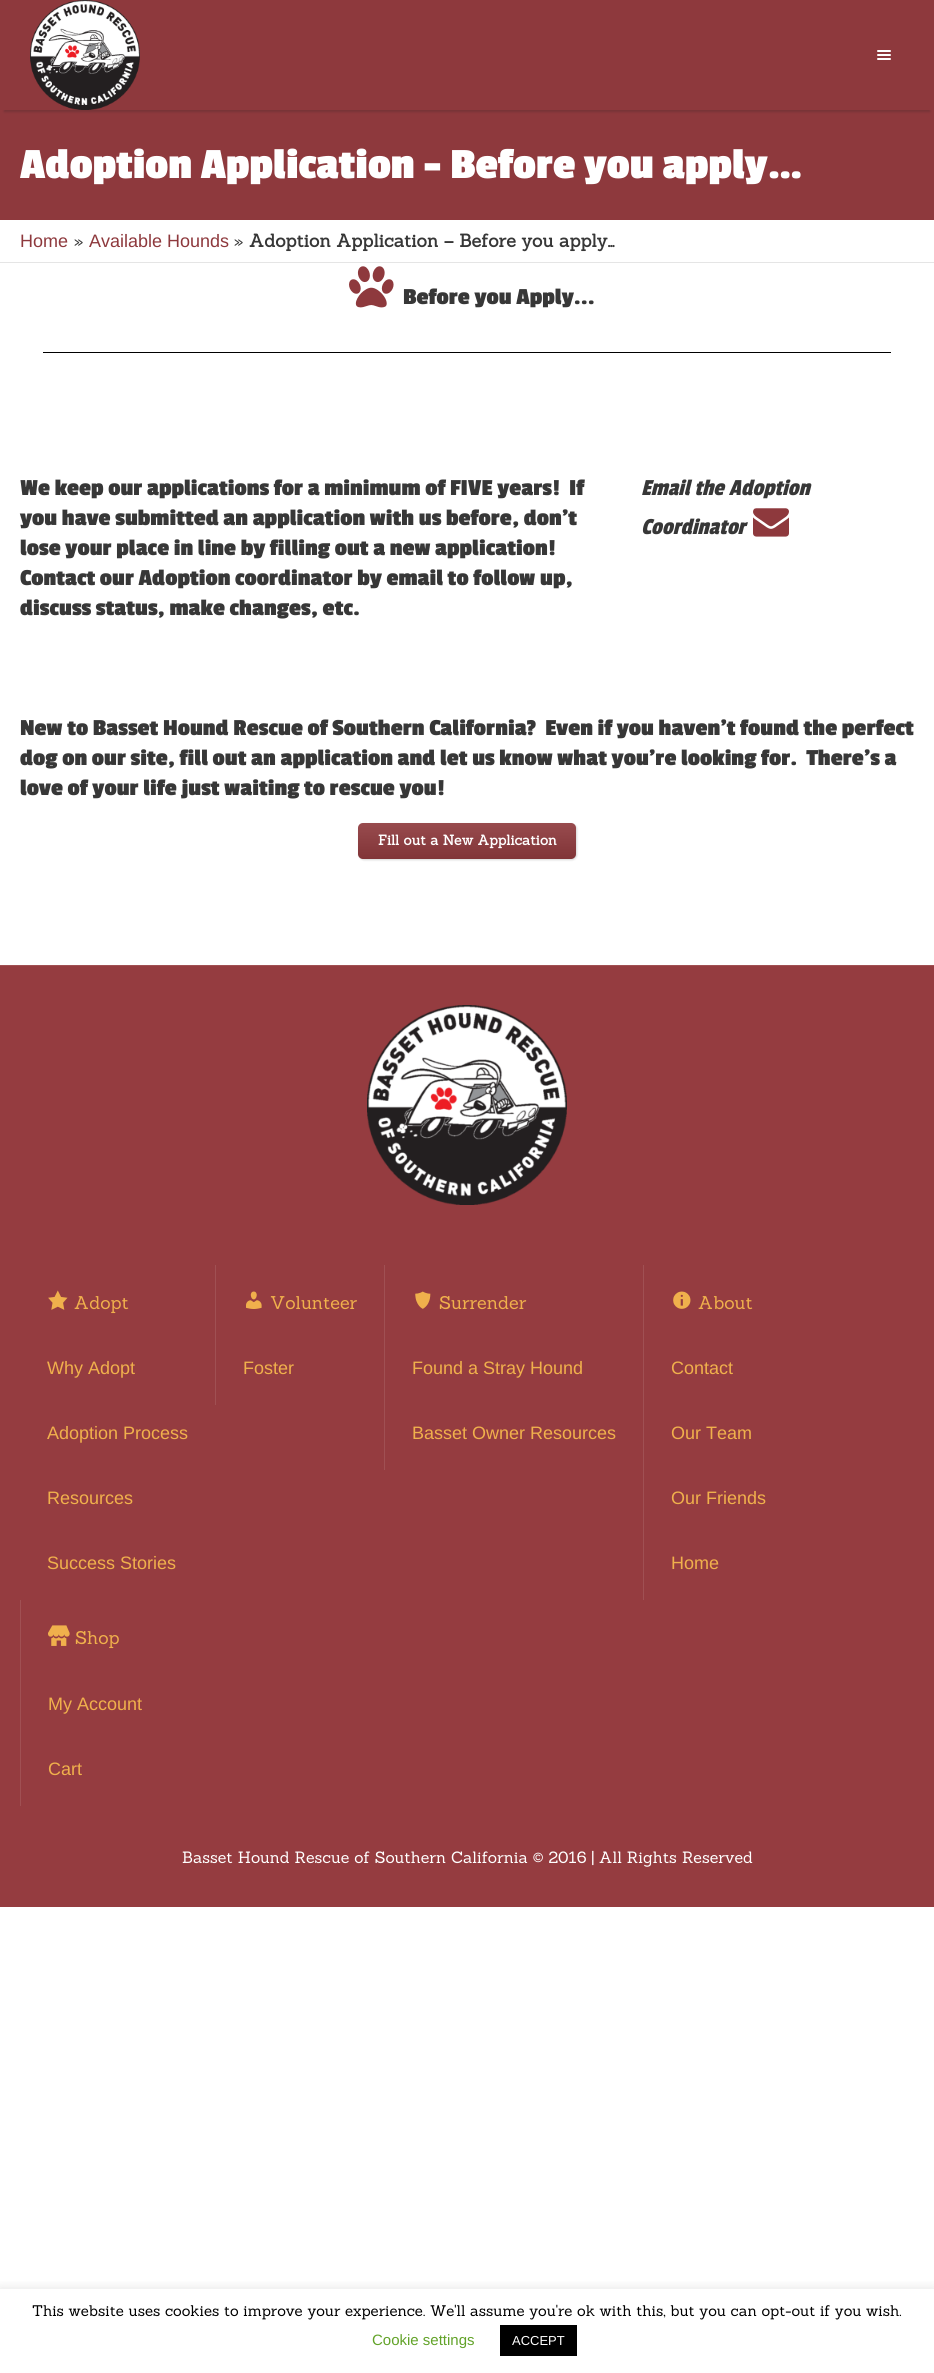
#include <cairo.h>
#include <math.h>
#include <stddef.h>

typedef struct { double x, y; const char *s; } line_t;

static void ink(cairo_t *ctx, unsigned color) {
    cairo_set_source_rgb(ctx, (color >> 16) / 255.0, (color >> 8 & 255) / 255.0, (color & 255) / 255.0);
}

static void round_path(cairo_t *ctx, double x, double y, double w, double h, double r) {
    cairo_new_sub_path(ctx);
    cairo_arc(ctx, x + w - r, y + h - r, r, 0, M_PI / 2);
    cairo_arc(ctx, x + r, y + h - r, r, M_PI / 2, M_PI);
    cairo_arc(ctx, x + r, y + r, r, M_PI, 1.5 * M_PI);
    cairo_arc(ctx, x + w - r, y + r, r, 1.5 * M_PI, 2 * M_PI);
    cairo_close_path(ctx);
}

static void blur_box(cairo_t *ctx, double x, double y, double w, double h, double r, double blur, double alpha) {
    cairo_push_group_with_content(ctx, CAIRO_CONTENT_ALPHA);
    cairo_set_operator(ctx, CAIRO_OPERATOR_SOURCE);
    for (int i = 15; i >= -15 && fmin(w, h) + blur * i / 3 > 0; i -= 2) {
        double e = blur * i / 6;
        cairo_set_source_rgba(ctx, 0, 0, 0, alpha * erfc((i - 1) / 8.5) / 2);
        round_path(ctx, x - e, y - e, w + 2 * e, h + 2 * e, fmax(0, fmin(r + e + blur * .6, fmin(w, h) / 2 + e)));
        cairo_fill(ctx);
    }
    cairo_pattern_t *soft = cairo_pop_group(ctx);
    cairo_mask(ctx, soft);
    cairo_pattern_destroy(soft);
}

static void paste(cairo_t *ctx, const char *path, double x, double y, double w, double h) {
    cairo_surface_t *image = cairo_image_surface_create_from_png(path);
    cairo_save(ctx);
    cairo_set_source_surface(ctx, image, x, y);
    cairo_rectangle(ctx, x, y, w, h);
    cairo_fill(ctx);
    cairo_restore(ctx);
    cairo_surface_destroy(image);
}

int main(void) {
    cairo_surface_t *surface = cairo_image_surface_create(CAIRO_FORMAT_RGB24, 934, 2373);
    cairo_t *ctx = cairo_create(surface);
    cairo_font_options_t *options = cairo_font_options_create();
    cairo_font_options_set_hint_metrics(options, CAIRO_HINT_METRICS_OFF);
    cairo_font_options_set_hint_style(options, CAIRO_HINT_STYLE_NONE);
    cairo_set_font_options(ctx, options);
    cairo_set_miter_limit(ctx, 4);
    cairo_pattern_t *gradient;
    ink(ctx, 0xFFFFFF);
    cairo_paint(ctx);
    ink(ctx, 0x8E393D);
    cairo_rectangle(ctx, 0, 110, 934, 110);
    cairo_fill(ctx);
    ink(ctx, 0x191C1E);
    blur_box(ctx, 4, 10, 926, 102, 0, 1, 0.2);
    ink(ctx, 0x8E393D);
    cairo_rectangle(ctx, 0, 0, 934, 110);
    cairo_fill(ctx);
    paste(ctx, "media/1.png", 30, 0, 110, 110);
    paste(ctx, "media/2.png", 877, 50, 14, 10);
    cairo_select_font_face(ctx, "Passion One", CAIRO_FONT_SLANT_NORMAL, CAIRO_FONT_WEIGHT_BOLD);
    cairo_set_font_size(ctx, 45);
    ink(ctx, 0xFFFFFF);
    cairo_move_to(ctx, 20, 178);
    cairo_show_text(ctx, "Adoption Application – Before you apply…");
    ink(ctx, 0xE5E5E5);
    cairo_rectangle(ctx, 0, 262, 934, 1);
    cairo_fill(ctx);
    cairo_select_font_face(ctx, "Liberation Sans", CAIRO_FONT_SLANT_NORMAL, CAIRO_FONT_WEIGHT_NORMAL);
    cairo_set_font_size(ctx, 18);
    ink(ctx, 0x8E393D);
    cairo_move_to(ctx, 20, 247);
    cairo_show_text(ctx, "Home");
    cairo_select_font_face(ctx, "Sanchez", CAIRO_FONT_SLANT_NORMAL, CAIRO_FONT_WEIGHT_NORMAL);
    ink(ctx, 0x373737);
    cairo_move_to(ctx, 74, 247);
    cairo_show_text(ctx, "»");
    cairo_select_font_face(ctx, "Liberation Sans", CAIRO_FONT_SLANT_NORMAL, CAIRO_FONT_WEIGHT_NORMAL);
    ink(ctx, 0x8E393D);
    cairo_move_to(ctx, 89, 247);
    cairo_show_text(ctx, "Available Hounds");
    cairo_select_font_face(ctx, "Sanchez", CAIRO_FONT_SLANT_NORMAL, CAIRO_FONT_WEIGHT_NORMAL);
    ink(ctx, 0x373737);
    cairo_move_to(ctx, 234, 247);
    cairo_show_text(ctx, "»");
    cairo_select_font_face(ctx, "Sanchez", CAIRO_FONT_SLANT_NORMAL, CAIRO_FONT_WEIGHT_BOLD);
    cairo_move_to(ctx, 249, 247);
    cairo_show_text(ctx, "Adoption Application – Before you apply…");
    paste(ctx, "media/3.png", 349, 266, 45, 42);
    cairo_select_font_face(ctx, "Passion One", CAIRO_FONT_SLANT_NORMAL, CAIRO_FONT_WEIGHT_BOLD);
    cairo_set_font_size(ctx, 24);
    cairo_move_to(ctx, 403, 304);
    cairo_show_text(ctx, "Before you Apply...");
    ink(ctx, 0x000000);
    cairo_rectangle(ctx, 43, 352, 848, 1);
    cairo_fill(ctx);
    ink(ctx, 0x373737);
    {
        static const line_t items[] = {
            {20, 495, "We keep our applications for a minimum of FIVE years!  If"},
            {20, 525, "you have submitted an application with us before, don’t"},
            {20, 555, "lose your place in line by filling out a new application!"},
            {20, 585, "Contact our Adoption coordinator by email to follow up,"},
            {20, 615, "discuss status, make changes, etc."},
        };
        for (size_t i = 0; i < sizeof items / sizeof *items; i++) {
            cairo_move_to(ctx, items[i].x, items[i].y);
            cairo_show_text(ctx, items[i].s);
        }
    }
    cairo_select_font_face(ctx, "Passion One", CAIRO_FONT_SLANT_ITALIC, CAIRO_FONT_WEIGHT_NORMAL);
    cairo_move_to(ctx, 641, 495);
    cairo_show_text(ctx, "Email the Adoption");
    cairo_move_to(ctx, 641, 534);
    cairo_show_text(ctx, "Coordinator");
    paste(ctx, "media/4.png", 753, 508, 36, 29);
    cairo_select_font_face(ctx, "Passion One", CAIRO_FONT_SLANT_NORMAL, CAIRO_FONT_WEIGHT_BOLD);
    {
        static const line_t items[] = {
            {20, 735, "New to Basset Hound Rescue of Southern California?  Even if you haven’t found the perfect"},
            {20, 765, "dog on our site, fill out an application and let us know what you’re looking for.  There’s a"},
            {20, 795, "love of your life just waiting to rescue you!"},
        };
        for (size_t i = 0; i < sizeof items / sizeof *items; i++) {
            cairo_move_to(ctx, items[i].x, items[i].y);
            cairo_show_text(ctx, items[i].s);
        }
    }
    ink(ctx, 0x000000);
    blur_box(ctx, 359, 824, 218, 36, 5, 1, 0.16);
    ink(ctx, 0x8E393D);
    round_path(ctx, 358, 823, 218, 36, 5);
    cairo_fill(ctx);
    gradient = cairo_pattern_create_linear(467, 823, 467, 859);
    cairo_pattern_add_color_stop_rgba(gradient, 0, 1, 1, 1, 0.09);
    cairo_pattern_add_color_stop_rgba(gradient, 1, 0, 0, 0, 0.09);
    cairo_set_source(ctx, gradient);
    cairo_pattern_destroy(gradient);
    round_path(ctx, 358, 823, 218, 36, 5);
    cairo_fill(ctx);
    cairo_select_font_face(ctx, "Sanchez", CAIRO_FONT_SLANT_NORMAL, CAIRO_FONT_WEIGHT_BOLD);
    cairo_set_font_size(ctx, 14);
    ink(ctx, 0xFFFFFF);
    cairo_move_to(ctx, 378, 845);
    cairo_show_text(ctx, "Fill out a New Application");
    ink(ctx, 0x953C40);
    cairo_rectangle(ctx, 0, 966, 934, 941);
    cairo_fill(ctx);
    ink(ctx, 0xA05053);
    cairo_rectangle(ctx, 0, 965, 934, 1);
    cairo_fill(ctx);
    paste(ctx, "media/5.png", 367, 1005, 200, 200);
    paste(ctx, "media/6.png", 48, 1290, 20, 20);
    cairo_select_font_face(ctx, "Sanchez", CAIRO_FONT_SLANT_NORMAL, CAIRO_FONT_WEIGHT_NORMAL);
    cairo_set_font_size(ctx, 18);
    ink(ctx, 0xF0B04C);
    cairo_move_to(ctx, 74, 1309);
    cairo_show_text(ctx, "Adopt");
    cairo_select_font_face(ctx, "Liberation Sans", CAIRO_FONT_SLANT_NORMAL, CAIRO_FONT_WEIGHT_NORMAL);
    {
        static const line_t items[] = {
            {47, 1374, "Why Adopt"},
            {47, 1439, "Adoption Process"},
            {47, 1504, "Resources"},
            {47, 1569, "Success Stories"},
        };
        for (size_t i = 0; i < sizeof items / sizeof *items; i++) {
            cairo_move_to(ctx, items[i].x, items[i].y);
            cairo_show_text(ctx, items[i].s);
        }
    }
    ink(ctx, 0xA05053);
    cairo_rectangle(ctx, 215, 1265, 1, 140);
    cairo_fill(ctx);
    paste(ctx, "media/7.png", 246, 1291, 16, 18);
    cairo_select_font_face(ctx, "Sanchez", CAIRO_FONT_SLANT_NORMAL, CAIRO_FONT_WEIGHT_NORMAL);
    ink(ctx, 0xF0B04C);
    cairo_move_to(ctx, 270, 1309);
    cairo_show_text(ctx, "Volunteer");
    cairo_select_font_face(ctx, "Liberation Sans", CAIRO_FONT_SLANT_NORMAL, CAIRO_FONT_WEIGHT_NORMAL);
    cairo_move_to(ctx, 243, 1374);
    cairo_show_text(ctx, "Foster");
    ink(ctx, 0xA05053);
    cairo_rectangle(ctx, 384, 1265, 1, 205);
    cairo_fill(ctx);
    paste(ctx, "media/8.png", 415, 1291, 16, 18);
    cairo_select_font_face(ctx, "Sanchez", CAIRO_FONT_SLANT_NORMAL, CAIRO_FONT_WEIGHT_NORMAL);
    ink(ctx, 0xF0B04C);
    cairo_move_to(ctx, 439, 1309);
    cairo_show_text(ctx, "Surrender");
    cairo_select_font_face(ctx, "Liberation Sans", CAIRO_FONT_SLANT_NORMAL, CAIRO_FONT_WEIGHT_NORMAL);
    cairo_move_to(ctx, 412, 1374);
    cairo_show_text(ctx, "Found a Stray Hound");
    cairo_move_to(ctx, 412, 1439);
    cairo_show_text(ctx, "Basset Owner Resources");
    ink(ctx, 0xA05053);
    cairo_rectangle(ctx, 643, 1265, 1, 335);
    cairo_fill(ctx);
    paste(ctx, "media/9.png", 673, 1291, 18, 18);
    cairo_select_font_face(ctx, "Sanchez", CAIRO_FONT_SLANT_NORMAL, CAIRO_FONT_WEIGHT_NORMAL);
    ink(ctx, 0xF0B04C);
    cairo_move_to(ctx, 698, 1309);
    cairo_show_text(ctx, "About");
    cairo_select_font_face(ctx, "Liberation Sans", CAIRO_FONT_SLANT_NORMAL, CAIRO_FONT_WEIGHT_NORMAL);
    {
        static const line_t items[] = {
            {671, 1374, "Contact"},
            {671, 1439, "Our Team"},
            {671, 1504, "Our Friends"},
            {671, 1569, "Home"},
        };
        for (size_t i = 0; i < sizeof items / sizeof *items; i++) {
            cairo_move_to(ctx, items[i].x, items[i].y);
            cairo_show_text(ctx, items[i].s);
        }
    }
    ink(ctx, 0xA05053);
    cairo_rectangle(ctx, 20, 1600, 1, 206);
    cairo_fill(ctx);
    paste(ctx, "media/10.png", 48, 1625, 22, 21);
    cairo_select_font_face(ctx, "Sanchez", CAIRO_FONT_SLANT_NORMAL, CAIRO_FONT_WEIGHT_NORMAL);
    ink(ctx, 0xF0B04C);
    cairo_move_to(ctx, 75, 1644);
    cairo_show_text(ctx, "Shop");
    cairo_select_font_face(ctx, "Liberation Sans", CAIRO_FONT_SLANT_NORMAL, CAIRO_FONT_WEIGHT_NORMAL);
    cairo_move_to(ctx, 48, 1710);
    cairo_show_text(ctx, "My Account");
    cairo_move_to(ctx, 48, 1775);
    cairo_show_text(ctx, "Cart");
    cairo_select_font_face(ctx, "Sanchez", CAIRO_FONT_SLANT_NORMAL, CAIRO_FONT_WEIGHT_NORMAL);
    cairo_set_font_size(ctx, 16);
    ink(ctx, 0xFFFFFF);
    cairo_move_to(ctx, 182, 1863);
    cairo_show_text(ctx, "Basset Hound Rescue of Southern California © 2016 | All Rights Reserved");
    cairo_save(ctx);
    cairo_rectangle(ctx, 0, 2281, 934, 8);
    cairo_clip(ctx);
    ink(ctx, 0xACABAB);
    blur_box(ctx, 0, 2288, 934, 84, 0, 5, 0.3);
    cairo_restore(ctx);
    cairo_set_font_size(ctx, 15);
    ink(ctx, 0x000000);
    cairo_move_to(ctx, 32, 2316);
    cairo_show_text(ctx, "This website uses cookies to improve your experience. We'll assume you're ok with this, but you can opt-out if you wish.");
    cairo_select_font_face(ctx, "Liberation Sans", CAIRO_FONT_SLANT_NORMAL, CAIRO_FONT_WEIGHT_NORMAL);
    ink(ctx, 0x62A329);
    cairo_move_to(ctx, 372, 2345);
    cairo_show_text(ctx, "Cookie settings");
    ink(ctx, 0x000000);
    cairo_rectangle(ctx, 500, 2325, 77, 31);
    cairo_fill(ctx);
    cairo_set_font_size(ctx, 13);
    ink(ctx, 0xFFFFFF);
    cairo_move_to(ctx, 512, 2345);
    cairo_show_text(ctx, "ACCEPT");
    cairo_surface_write_to_png(surface, "image.png");
    cairo_font_options_destroy(options);
    cairo_destroy(ctx);
    cairo_surface_destroy(surface);
    return 0;
}
